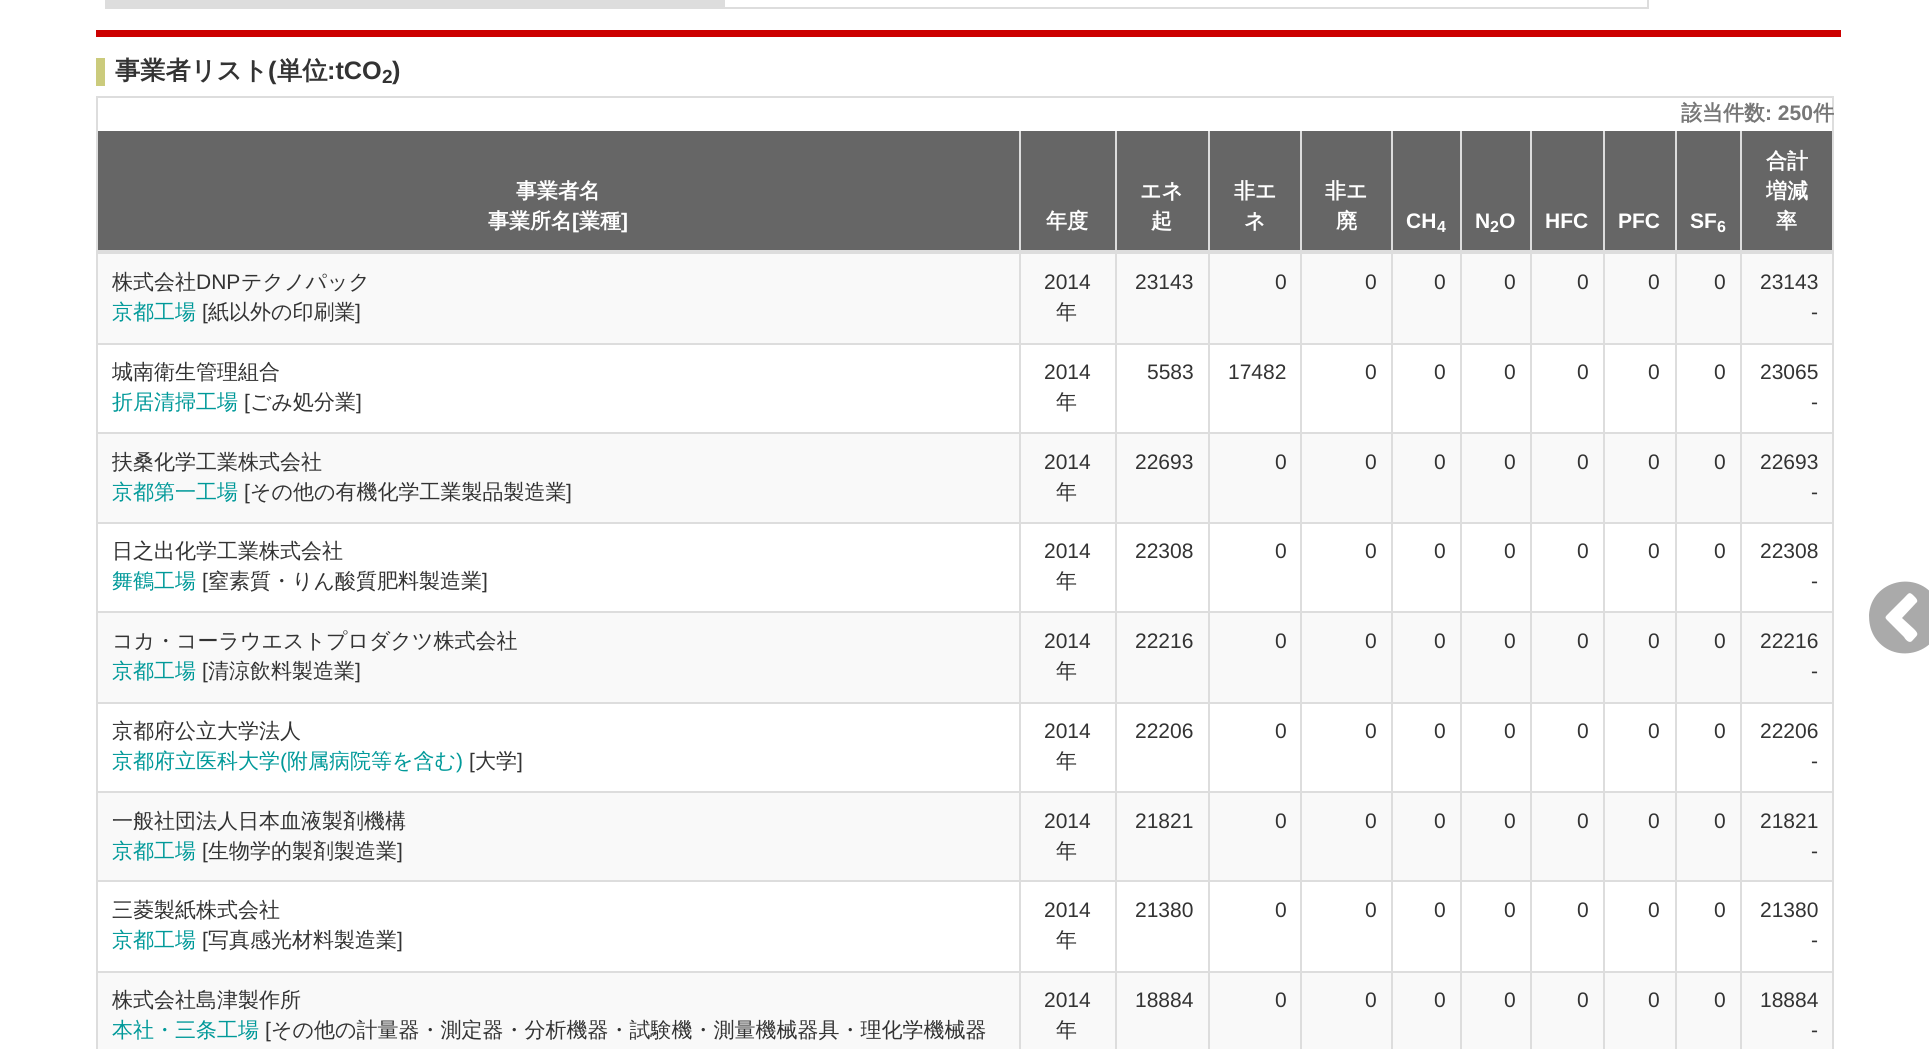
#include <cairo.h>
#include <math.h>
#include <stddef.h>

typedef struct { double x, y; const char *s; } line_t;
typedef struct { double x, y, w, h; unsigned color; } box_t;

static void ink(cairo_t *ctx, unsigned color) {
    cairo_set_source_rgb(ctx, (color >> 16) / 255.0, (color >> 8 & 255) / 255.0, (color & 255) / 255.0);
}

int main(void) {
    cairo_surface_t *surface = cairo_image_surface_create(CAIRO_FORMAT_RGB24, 1929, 1049);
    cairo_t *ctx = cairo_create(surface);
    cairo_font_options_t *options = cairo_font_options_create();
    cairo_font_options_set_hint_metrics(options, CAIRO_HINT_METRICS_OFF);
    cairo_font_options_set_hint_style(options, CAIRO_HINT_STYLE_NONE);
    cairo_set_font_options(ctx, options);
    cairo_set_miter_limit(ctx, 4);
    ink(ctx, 0xFFFFFF);
    cairo_paint(ctx);
    {
        static const box_t items[] = {
            {1647, 0, 2, 9, 0xDDDDDD},
            {105, 7, 1544, 2, 0xDDDDDD},
            {105, 0, 2, 9, 0xDDDDDD},
            {107, 0, 616, 7, 0xDDDDDD},
            {723, 0, 2, 9, 0xDDDDDD},
            {96, 30, 1745, 7, 0xCC0000},
            {96, 58, 9, 28, 0xCBCB7C},
        };
        for (size_t i = 0; i < sizeof items / sizeof *items; i++) {
            ink(ctx, items[i].color);
            cairo_rectangle(ctx, items[i].x, items[i].y, items[i].w, items[i].h);
            cairo_fill(ctx);
        }
    }
    cairo_select_font_face(ctx, "WenQuanYi Zen Hei", CAIRO_FONT_SLANT_NORMAL, CAIRO_FONT_WEIGHT_BOLD);
    cairo_set_font_size(ctx, 25.25);
    ink(ctx, 0x333333);
    cairo_move_to(ctx, 115, 79);
    cairo_show_text(ctx, "事業者リスト");
    cairo_select_font_face(ctx, "Liberation Sans", CAIRO_FONT_SLANT_NORMAL, CAIRO_FONT_WEIGHT_BOLD);
    cairo_move_to(ctx, 268, 79);
    cairo_show_text(ctx, "(");
    cairo_select_font_face(ctx, "WenQuanYi Zen Hei", CAIRO_FONT_SLANT_NORMAL, CAIRO_FONT_WEIGHT_BOLD);
    cairo_move_to(ctx, 277, 79);
    cairo_show_text(ctx, "単位");
    cairo_select_font_face(ctx, "Liberation Sans", CAIRO_FONT_SLANT_NORMAL, CAIRO_FONT_WEIGHT_BOLD);
    cairo_move_to(ctx, 327, 79);
    cairo_show_text(ctx, ":tCO");
    cairo_set_font_size(ctx, 19);
    cairo_move_to(ctx, 382, 83);
    cairo_show_text(ctx, "2");
    cairo_set_font_size(ctx, 25.25);
    cairo_move_to(ctx, 392, 79);
    cairo_show_text(ctx, ")");
    {
        static const box_t items[] = {
            {96, 96, 1738, 2, 0xDDDDDD},
            {1832, 96, 2, 953, 0xDDDDDD},
            {96, 96, 2, 953, 0xDDDDDD},
        };
        for (size_t i = 0; i < sizeof items / sizeof *items; i++) {
            ink(ctx, items[i].color);
            cairo_rectangle(ctx, items[i].x, items[i].y, items[i].w, items[i].h);
            cairo_fill(ctx);
        }
    }
    cairo_select_font_face(ctx, "WenQuanYi Zen Hei", CAIRO_FONT_SLANT_NORMAL, CAIRO_FONT_WEIGHT_BOLD);
    cairo_set_font_size(ctx, 21);
    ink(ctx, 0x777777);
    cairo_move_to(ctx, 1681, 120);
    cairo_show_text(ctx, "該当件数");
    cairo_select_font_face(ctx, "Liberation Sans", CAIRO_FONT_SLANT_NORMAL, CAIRO_FONT_WEIGHT_BOLD);
    cairo_move_to(ctx, 1765, 120);
    cairo_show_text(ctx, ": 250");
    cairo_select_font_face(ctx, "WenQuanYi Zen Hei", CAIRO_FONT_SLANT_NORMAL, CAIRO_FONT_WEIGHT_BOLD);
    cairo_move_to(ctx, 1813, 120);
    cairo_show_text(ctx, "件");
    ink(ctx, 0x666666);
    cairo_rectangle(ctx, 98, 131, 921, 119);
    cairo_fill(ctx);
    ink(ctx, 0xFFFFFF);
    cairo_move_to(ctx, 516, 198);
    cairo_show_text(ctx, "事業者名");
    cairo_move_to(ctx, 488, 228);
    cairo_show_text(ctx, "事業所名");
    cairo_select_font_face(ctx, "Liberation Sans", CAIRO_FONT_SLANT_NORMAL, CAIRO_FONT_WEIGHT_BOLD);
    cairo_move_to(ctx, 572, 228);
    cairo_show_text(ctx, "[");
    cairo_select_font_face(ctx, "WenQuanYi Zen Hei", CAIRO_FONT_SLANT_NORMAL, CAIRO_FONT_WEIGHT_BOLD);
    cairo_move_to(ctx, 579, 228);
    cairo_show_text(ctx, "業種");
    cairo_select_font_face(ctx, "Liberation Sans", CAIRO_FONT_SLANT_NORMAL, CAIRO_FONT_WEIGHT_BOLD);
    cairo_move_to(ctx, 621, 228);
    cairo_show_text(ctx, "]");
    ink(ctx, 0x666666);
    cairo_rectangle(ctx, 1021, 131, 94, 119);
    cairo_fill(ctx);
    cairo_select_font_face(ctx, "WenQuanYi Zen Hei", CAIRO_FONT_SLANT_NORMAL, CAIRO_FONT_WEIGHT_BOLD);
    ink(ctx, 0xFFFFFF);
    cairo_move_to(ctx, 1046, 228);
    cairo_show_text(ctx, "年度");
    ink(ctx, 0x666666);
    cairo_rectangle(ctx, 1117, 131, 91, 119);
    cairo_fill(ctx);
    ink(ctx, 0xFFFFFF);
    cairo_move_to(ctx, 1140, 198);
    cairo_show_text(ctx, "エネ");
    cairo_move_to(ctx, 1151, 228);
    cairo_show_text(ctx, "起");
    ink(ctx, 0x666666);
    cairo_rectangle(ctx, 1210, 131, 90, 119);
    cairo_fill(ctx);
    ink(ctx, 0xFFFFFF);
    cairo_move_to(ctx, 1234, 198);
    cairo_show_text(ctx, "非エ");
    cairo_move_to(ctx, 1244, 228);
    cairo_show_text(ctx, "ネ");
    ink(ctx, 0x666666);
    cairo_rectangle(ctx, 1302, 131, 89, 119);
    cairo_fill(ctx);
    ink(ctx, 0xFFFFFF);
    cairo_move_to(ctx, 1325, 198);
    cairo_show_text(ctx, "非エ");
    cairo_move_to(ctx, 1336, 228);
    cairo_show_text(ctx, "廃");
    ink(ctx, 0x666666);
    cairo_rectangle(ctx, 1393, 131, 67, 119);
    cairo_fill(ctx);
    cairo_select_font_face(ctx, "Liberation Sans", CAIRO_FONT_SLANT_NORMAL, CAIRO_FONT_WEIGHT_BOLD);
    ink(ctx, 0xFFFFFF);
    cairo_move_to(ctx, 1406, 228);
    cairo_show_text(ctx, "CH");
    cairo_set_font_size(ctx, 16);
    cairo_move_to(ctx, 1437, 232);
    cairo_show_text(ctx, "4");
    ink(ctx, 0x666666);
    cairo_rectangle(ctx, 1462, 131, 68, 119);
    cairo_fill(ctx);
    cairo_set_font_size(ctx, 21);
    ink(ctx, 0xFFFFFF);
    cairo_move_to(ctx, 1475, 228);
    cairo_show_text(ctx, "N");
    cairo_set_font_size(ctx, 16);
    cairo_move_to(ctx, 1490, 232);
    cairo_show_text(ctx, "2");
    cairo_set_font_size(ctx, 21);
    cairo_move_to(ctx, 1499, 228);
    cairo_show_text(ctx, "O");
    ink(ctx, 0x666666);
    cairo_rectangle(ctx, 1532, 131, 71, 119);
    cairo_fill(ctx);
    ink(ctx, 0xFFFFFF);
    cairo_move_to(ctx, 1545, 228);
    cairo_show_text(ctx, "HFC");
    ink(ctx, 0x666666);
    cairo_rectangle(ctx, 1605, 131, 70, 119);
    cairo_fill(ctx);
    ink(ctx, 0xFFFFFF);
    cairo_move_to(ctx, 1618, 228);
    cairo_show_text(ctx, "PFC");
    ink(ctx, 0x666666);
    cairo_rectangle(ctx, 1677, 131, 63, 119);
    cairo_fill(ctx);
    ink(ctx, 0xFFFFFF);
    cairo_move_to(ctx, 1690, 228);
    cairo_show_text(ctx, "SF");
    cairo_set_font_size(ctx, 16);
    cairo_move_to(ctx, 1717, 232);
    cairo_show_text(ctx, "6");
    {
        static const box_t items[] = {
            {1742, 131, 90, 119, 0x666666},
            {98, 254, 1734, 89, 0xF9F9F9},
            {1740, 343, 94, 2, 0xDDDDDD},
            {1740, 432, 94, 2, 0xDDDDDD},
            {98, 434, 1734, 88, 0xF9F9F9},
            {1740, 522, 94, 2, 0xDDDDDD},
            {1740, 611, 94, 2, 0xDDDDDD},
            {98, 613, 1734, 89, 0xF9F9F9},
            {1740, 702, 94, 2, 0xDDDDDD},
            {1740, 791, 94, 2, 0xDDDDDD},
            {98, 793, 1734, 87, 0xF9F9F9},
            {1740, 880, 94, 2, 0xDDDDDD},
            {1740, 971, 94, 2, 0xDDDDDD},
            {98, 973, 1734, 76, 0xF9F9F9},
            {1740, 971, 2, 78, 0xDDDDDD},
            {1675, 971, 66, 2, 0xDDDDDD},
            {1740, 880, 2, 93, 0xDDDDDD},
            {1675, 880, 66, 2, 0xDDDDDD},
            {1740, 791, 2, 91, 0xDDDDDD},
            {1675, 791, 66, 2, 0xDDDDDD},
            {1740, 702, 2, 91, 0xDDDDDD},
            {1675, 702, 66, 2, 0xDDDDDD},
            {1740, 611, 2, 93, 0xDDDDDD},
            {1675, 611, 66, 2, 0xDDDDDD},
            {1740, 522, 2, 91, 0xDDDDDD},
            {1675, 522, 66, 2, 0xDDDDDD},
            {1740, 432, 2, 91, 0xDDDDDD},
            {1675, 432, 66, 2, 0xDDDDDD},
            {1740, 343, 2, 91, 0xDDDDDD},
            {1675, 343, 66, 2, 0xDDDDDD},
            {1675, 971, 2, 78, 0xDDDDDD},
            {1603, 971, 74, 2, 0xDDDDDD},
            {1675, 880, 2, 93, 0xDDDDDD},
            {1603, 880, 74, 2, 0xDDDDDD},
            {1675, 791, 2, 91, 0xDDDDDD},
            {1603, 791, 74, 2, 0xDDDDDD},
            {1675, 702, 2, 91, 0xDDDDDD},
            {1603, 702, 74, 2, 0xDDDDDD},
            {1675, 611, 2, 93, 0xDDDDDD},
            {1603, 611, 74, 2, 0xDDDDDD},
            {1675, 522, 2, 91, 0xDDDDDD},
            {1603, 522, 74, 2, 0xDDDDDD},
            {1675, 432, 2, 91, 0xDDDDDD},
            {1603, 432, 74, 2, 0xDDDDDD},
            {1675, 343, 2, 91, 0xDDDDDD},
            {1603, 343, 74, 2, 0xDDDDDD},
            {1603, 971, 2, 78, 0xDDDDDD},
            {1530, 971, 75, 2, 0xDDDDDD},
            {1603, 880, 2, 93, 0xDDDDDD},
            {1530, 880, 75, 2, 0xDDDDDD},
            {1603, 791, 2, 91, 0xDDDDDD},
            {1530, 791, 75, 2, 0xDDDDDD},
            {1603, 702, 2, 91, 0xDDDDDD},
            {1530, 702, 75, 2, 0xDDDDDD},
            {1603, 611, 2, 93, 0xDDDDDD},
            {1530, 611, 75, 2, 0xDDDDDD},
            {1603, 522, 2, 91, 0xDDDDDD},
            {1530, 522, 75, 2, 0xDDDDDD},
            {1603, 432, 2, 91, 0xDDDDDD},
            {1530, 432, 75, 2, 0xDDDDDD},
            {1603, 343, 2, 91, 0xDDDDDD},
            {1530, 343, 75, 2, 0xDDDDDD},
            {1530, 971, 2, 78, 0xDDDDDD},
            {1460, 971, 71, 2, 0xDDDDDD},
            {1530, 880, 2, 93, 0xDDDDDD},
            {1460, 880, 71, 2, 0xDDDDDD},
            {1530, 791, 2, 91, 0xDDDDDD},
            {1460, 791, 71, 2, 0xDDDDDD},
            {1530, 702, 2, 91, 0xDDDDDD},
            {1460, 702, 71, 2, 0xDDDDDD},
            {1530, 611, 2, 93, 0xDDDDDD},
            {1460, 611, 71, 2, 0xDDDDDD},
            {1530, 522, 2, 91, 0xDDDDDD},
            {1460, 522, 71, 2, 0xDDDDDD},
            {1530, 432, 2, 91, 0xDDDDDD},
            {1460, 432, 71, 2, 0xDDDDDD},
            {1530, 343, 2, 91, 0xDDDDDD},
            {1460, 343, 71, 2, 0xDDDDDD},
            {1460, 971, 2, 78, 0xDDDDDD},
            {1391, 971, 70, 2, 0xDDDDDD},
            {1460, 880, 2, 93, 0xDDDDDD},
            {1391, 880, 70, 2, 0xDDDDDD},
            {1460, 791, 2, 91, 0xDDDDDD},
            {1391, 791, 70, 2, 0xDDDDDD},
            {1460, 702, 2, 91, 0xDDDDDD},
            {1391, 702, 70, 2, 0xDDDDDD},
            {1460, 611, 2, 93, 0xDDDDDD},
            {1391, 611, 70, 2, 0xDDDDDD},
            {1460, 522, 2, 91, 0xDDDDDD},
            {1391, 522, 70, 2, 0xDDDDDD},
            {1460, 432, 2, 91, 0xDDDDDD},
            {1391, 432, 70, 2, 0xDDDDDD},
            {1460, 343, 2, 91, 0xDDDDDD},
            {1391, 343, 70, 2, 0xDDDDDD},
            {1391, 971, 2, 78, 0xDDDDDD},
            {1300, 971, 93, 2, 0xDDDDDD},
            {1391, 880, 2, 93, 0xDDDDDD},
            {1300, 880, 93, 2, 0xDDDDDD},
            {1391, 791, 2, 91, 0xDDDDDD},
            {1300, 791, 93, 2, 0xDDDDDD},
            {1391, 702, 2, 91, 0xDDDDDD},
            {1300, 702, 93, 2, 0xDDDDDD},
            {1391, 611, 2, 93, 0xDDDDDD},
            {1300, 611, 93, 2, 0xDDDDDD},
            {1391, 522, 2, 91, 0xDDDDDD},
            {1300, 522, 93, 2, 0xDDDDDD},
            {1391, 432, 2, 91, 0xDDDDDD},
            {1300, 432, 93, 2, 0xDDDDDD},
            {1391, 343, 2, 91, 0xDDDDDD},
            {1300, 343, 93, 2, 0xDDDDDD},
            {1300, 971, 2, 78, 0xDDDDDD},
            {1208, 971, 94, 2, 0xDDDDDD},
            {1300, 880, 2, 93, 0xDDDDDD},
            {1208, 880, 94, 2, 0xDDDDDD},
            {1300, 791, 2, 91, 0xDDDDDD},
            {1208, 791, 94, 2, 0xDDDDDD},
            {1300, 702, 2, 91, 0xDDDDDD},
            {1208, 702, 94, 2, 0xDDDDDD},
            {1300, 611, 2, 93, 0xDDDDDD},
            {1208, 611, 94, 2, 0xDDDDDD},
            {1300, 522, 2, 91, 0xDDDDDD},
            {1208, 522, 94, 2, 0xDDDDDD},
            {1300, 432, 2, 91, 0xDDDDDD},
            {1208, 432, 94, 2, 0xDDDDDD},
            {1300, 343, 2, 91, 0xDDDDDD},
            {1208, 343, 94, 2, 0xDDDDDD},
            {1208, 971, 2, 78, 0xDDDDDD},
            {1115, 971, 94, 2, 0xDDDDDD},
            {1208, 880, 2, 93, 0xDDDDDD},
            {1115, 880, 94, 2, 0xDDDDDD},
            {1208, 791, 2, 91, 0xDDDDDD},
            {1115, 791, 94, 2, 0xDDDDDD},
            {1208, 702, 2, 91, 0xDDDDDD},
            {1115, 702, 94, 2, 0xDDDDDD},
            {1208, 611, 2, 93, 0xDDDDDD},
            {1115, 611, 94, 2, 0xDDDDDD},
            {1208, 522, 2, 91, 0xDDDDDD},
            {1115, 522, 94, 2, 0xDDDDDD},
            {1208, 432, 2, 91, 0xDDDDDD},
            {1115, 432, 94, 2, 0xDDDDDD},
            {1208, 343, 2, 91, 0xDDDDDD},
            {1115, 343, 94, 2, 0xDDDDDD},
            {1115, 971, 2, 78, 0xDDDDDD},
            {1019, 971, 98, 2, 0xDDDDDD},
            {1115, 880, 2, 93, 0xDDDDDD},
            {1019, 880, 98, 2, 0xDDDDDD},
            {1115, 791, 2, 91, 0xDDDDDD},
            {1019, 791, 98, 2, 0xDDDDDD},
            {1115, 702, 2, 91, 0xDDDDDD},
            {1019, 702, 98, 2, 0xDDDDDD},
            {1115, 611, 2, 93, 0xDDDDDD},
            {1019, 611, 98, 2, 0xDDDDDD},
            {1115, 522, 2, 91, 0xDDDDDD},
            {1019, 522, 98, 2, 0xDDDDDD},
            {1115, 432, 2, 91, 0xDDDDDD},
            {1019, 432, 98, 2, 0xDDDDDD},
            {1115, 343, 2, 91, 0xDDDDDD},
            {1019, 343, 98, 2, 0xDDDDDD},
            {1019, 971, 2, 78, 0xDDDDDD},
            {96, 971, 924, 2, 0xDDDDDD},
            {1019, 880, 2, 93, 0xDDDDDD},
            {96, 880, 924, 2, 0xDDDDDD},
            {1019, 791, 2, 91, 0xDDDDDD},
            {96, 791, 924, 2, 0xDDDDDD},
            {1019, 702, 2, 91, 0xDDDDDD},
            {96, 702, 924, 2, 0xDDDDDD},
            {1019, 611, 2, 93, 0xDDDDDD},
            {96, 611, 924, 2, 0xDDDDDD},
            {1019, 522, 2, 91, 0xDDDDDD},
            {96, 522, 924, 2, 0xDDDDDD},
            {1019, 432, 2, 91, 0xDDDDDD},
            {96, 432, 924, 2, 0xDDDDDD},
            {1019, 343, 2, 91, 0xDDDDDD},
            {96, 343, 924, 2, 0xDDDDDD},
            {1019, 131, 2, 214, 0xDDDDDD},
            {1115, 131, 2, 214, 0xDDDDDD},
            {1208, 131, 2, 214, 0xDDDDDD},
            {1300, 131, 2, 214, 0xDDDDDD},
            {1391, 131, 2, 214, 0xDDDDDD},
            {1460, 131, 2, 214, 0xDDDDDD},
            {1530, 131, 2, 214, 0xDDDDDD},
            {1603, 131, 2, 214, 0xDDDDDD},
            {1675, 131, 2, 214, 0xDDDDDD},
            {1740, 131, 2, 214, 0xDDDDDD},
            {96, 250, 1738, 4, 0xDDDDDD},
        };
        for (size_t i = 0; i < sizeof items / sizeof *items; i++) {
            ink(ctx, items[i].color);
            cairo_rectangle(ctx, items[i].x, items[i].y, items[i].w, items[i].h);
            cairo_fill(ctx);
        }
    }
    cairo_select_font_face(ctx, "WenQuanYi Zen Hei", CAIRO_FONT_SLANT_NORMAL, CAIRO_FONT_WEIGHT_BOLD);
    cairo_set_font_size(ctx, 21);
    ink(ctx, 0xFFFFFF);
    {
        static const line_t items[] = {
            {1766, 168, "合計"},
            {1766, 198, "増減"},
            {1776, 228, "率"},
        };
        for (size_t i = 0; i < sizeof items / sizeof *items; i++) {
            cairo_move_to(ctx, items[i].x, items[i].y);
            cairo_show_text(ctx, items[i].s);
        }
    }
    cairo_select_font_face(ctx, "WenQuanYi Zen Hei Medium", CAIRO_FONT_SLANT_NORMAL, CAIRO_FONT_WEIGHT_NORMAL);
    ink(ctx, 0x333333);
    cairo_move_to(ctx, 112, 289);
    cairo_show_text(ctx, "株式会社");
    cairo_select_font_face(ctx, "Liberation Sans", CAIRO_FONT_SLANT_NORMAL, CAIRO_FONT_WEIGHT_NORMAL);
    cairo_move_to(ctx, 196, 289);
    cairo_show_text(ctx, "DNP");
    cairo_select_font_face(ctx, "WenQuanYi Zen Hei Medium", CAIRO_FONT_SLANT_NORMAL, CAIRO_FONT_WEIGHT_NORMAL);
    cairo_move_to(ctx, 241, 289);
    cairo_show_text(ctx, "テクノパック");
    ink(ctx, 0x009999);
    cairo_move_to(ctx, 112, 319);
    cairo_show_text(ctx, "京都工場");
    cairo_select_font_face(ctx, "Liberation Sans", CAIRO_FONT_SLANT_NORMAL, CAIRO_FONT_WEIGHT_NORMAL);
    ink(ctx, 0x333333);
    cairo_move_to(ctx, 202, 319);
    cairo_show_text(ctx, "[");
    cairo_select_font_face(ctx, "WenQuanYi Zen Hei Medium", CAIRO_FONT_SLANT_NORMAL, CAIRO_FONT_WEIGHT_NORMAL);
    cairo_move_to(ctx, 208, 319);
    cairo_show_text(ctx, "紙以外の印刷業");
    cairo_select_font_face(ctx, "Liberation Sans", CAIRO_FONT_SLANT_NORMAL, CAIRO_FONT_WEIGHT_NORMAL);
    cairo_move_to(ctx, 355, 319);
    cairo_show_text(ctx, "]");
    cairo_move_to(ctx, 1044, 289);
    cairo_show_text(ctx, "2014");
    cairo_select_font_face(ctx, "WenQuanYi Zen Hei Medium", CAIRO_FONT_SLANT_NORMAL, CAIRO_FONT_WEIGHT_NORMAL);
    cairo_move_to(ctx, 1056, 319);
    cairo_show_text(ctx, "年");
    cairo_select_font_face(ctx, "Liberation Sans", CAIRO_FONT_SLANT_NORMAL, CAIRO_FONT_WEIGHT_NORMAL);
    {
        static const line_t items[] = {
            {1135, 289, "23143"},
            {1275, 289, "0"},
            {1365, 289, "0"},
            {1434, 289, "0"},
            {1504, 289, "0"},
            {1577, 289, "0"},
            {1648, 289, "0"},
            {1714, 289, "0"},
            {1760, 289, "23143"},
            {1811, 319, "-"},
        };
        for (size_t i = 0; i < sizeof items / sizeof *items; i++) {
            cairo_move_to(ctx, items[i].x, items[i].y);
            cairo_show_text(ctx, items[i].s);
        }
    }
    cairo_select_font_face(ctx, "WenQuanYi Zen Hei Medium", CAIRO_FONT_SLANT_NORMAL, CAIRO_FONT_WEIGHT_NORMAL);
    cairo_move_to(ctx, 112, 379);
    cairo_show_text(ctx, "城南衛生管理組合");
    ink(ctx, 0x009999);
    cairo_move_to(ctx, 112, 409);
    cairo_show_text(ctx, "折居清掃工場");
    cairo_select_font_face(ctx, "Liberation Sans", CAIRO_FONT_SLANT_NORMAL, CAIRO_FONT_WEIGHT_NORMAL);
    ink(ctx, 0x333333);
    cairo_move_to(ctx, 244, 409);
    cairo_show_text(ctx, "[");
    cairo_select_font_face(ctx, "WenQuanYi Zen Hei Medium", CAIRO_FONT_SLANT_NORMAL, CAIRO_FONT_WEIGHT_NORMAL);
    cairo_move_to(ctx, 250, 409);
    cairo_show_text(ctx, "ごみ処分業");
    cairo_select_font_face(ctx, "Liberation Sans", CAIRO_FONT_SLANT_NORMAL, CAIRO_FONT_WEIGHT_NORMAL);
    cairo_move_to(ctx, 356, 409);
    cairo_show_text(ctx, "]");
    cairo_move_to(ctx, 1044, 379);
    cairo_show_text(ctx, "2014");
    cairo_select_font_face(ctx, "WenQuanYi Zen Hei Medium", CAIRO_FONT_SLANT_NORMAL, CAIRO_FONT_WEIGHT_NORMAL);
    cairo_move_to(ctx, 1056, 409);
    cairo_show_text(ctx, "年");
    cairo_select_font_face(ctx, "Liberation Sans", CAIRO_FONT_SLANT_NORMAL, CAIRO_FONT_WEIGHT_NORMAL);
    {
        static const line_t items[] = {
            {1147, 379, "5583"},
            {1228, 379, "17482"},
            {1365, 379, "0"},
            {1434, 379, "0"},
            {1504, 379, "0"},
            {1577, 379, "0"},
            {1648, 379, "0"},
            {1714, 379, "0"},
            {1760, 379, "23065"},
            {1811, 409, "-"},
        };
        for (size_t i = 0; i < sizeof items / sizeof *items; i++) {
            cairo_move_to(ctx, items[i].x, items[i].y);
            cairo_show_text(ctx, items[i].s);
        }
    }
    cairo_select_font_face(ctx, "WenQuanYi Zen Hei Medium", CAIRO_FONT_SLANT_NORMAL, CAIRO_FONT_WEIGHT_NORMAL);
    cairo_move_to(ctx, 112, 469);
    cairo_show_text(ctx, "扶桑化学工業株式会社");
    ink(ctx, 0x009999);
    cairo_move_to(ctx, 112, 499);
    cairo_show_text(ctx, "京都第一工場");
    cairo_select_font_face(ctx, "Liberation Sans", CAIRO_FONT_SLANT_NORMAL, CAIRO_FONT_WEIGHT_NORMAL);
    ink(ctx, 0x333333);
    cairo_move_to(ctx, 244, 499);
    cairo_show_text(ctx, "[");
    cairo_select_font_face(ctx, "WenQuanYi Zen Hei Medium", CAIRO_FONT_SLANT_NORMAL, CAIRO_FONT_WEIGHT_NORMAL);
    cairo_move_to(ctx, 250, 499);
    cairo_show_text(ctx, "その他の有機化学工業製品製造業");
    cairo_select_font_face(ctx, "Liberation Sans", CAIRO_FONT_SLANT_NORMAL, CAIRO_FONT_WEIGHT_NORMAL);
    cairo_move_to(ctx, 566, 499);
    cairo_show_text(ctx, "]");
    cairo_move_to(ctx, 1044, 469);
    cairo_show_text(ctx, "2014");
    cairo_select_font_face(ctx, "WenQuanYi Zen Hei Medium", CAIRO_FONT_SLANT_NORMAL, CAIRO_FONT_WEIGHT_NORMAL);
    cairo_move_to(ctx, 1056, 499);
    cairo_show_text(ctx, "年");
    cairo_select_font_face(ctx, "Liberation Sans", CAIRO_FONT_SLANT_NORMAL, CAIRO_FONT_WEIGHT_NORMAL);
    {
        static const line_t items[] = {
            {1135, 469, "22693"},
            {1275, 469, "0"},
            {1365, 469, "0"},
            {1434, 469, "0"},
            {1504, 469, "0"},
            {1577, 469, "0"},
            {1648, 469, "0"},
            {1714, 469, "0"},
            {1760, 469, "22693"},
            {1811, 499, "-"},
        };
        for (size_t i = 0; i < sizeof items / sizeof *items; i++) {
            cairo_move_to(ctx, items[i].x, items[i].y);
            cairo_show_text(ctx, items[i].s);
        }
    }
    cairo_select_font_face(ctx, "WenQuanYi Zen Hei Medium", CAIRO_FONT_SLANT_NORMAL, CAIRO_FONT_WEIGHT_NORMAL);
    cairo_move_to(ctx, 112, 558);
    cairo_show_text(ctx, "日之出化学工業株式会社");
    ink(ctx, 0x009999);
    cairo_move_to(ctx, 112, 588);
    cairo_show_text(ctx, "舞鶴工場");
    cairo_select_font_face(ctx, "Liberation Sans", CAIRO_FONT_SLANT_NORMAL, CAIRO_FONT_WEIGHT_NORMAL);
    ink(ctx, 0x333333);
    cairo_move_to(ctx, 202, 588);
    cairo_show_text(ctx, "[");
    cairo_select_font_face(ctx, "WenQuanYi Zen Hei Medium", CAIRO_FONT_SLANT_NORMAL, CAIRO_FONT_WEIGHT_NORMAL);
    cairo_move_to(ctx, 208, 588);
    cairo_show_text(ctx, "窒素質・りん酸質肥料製造業");
    cairo_select_font_face(ctx, "Liberation Sans", CAIRO_FONT_SLANT_NORMAL, CAIRO_FONT_WEIGHT_NORMAL);
    cairo_move_to(ctx, 482, 588);
    cairo_show_text(ctx, "]");
    cairo_move_to(ctx, 1044, 558);
    cairo_show_text(ctx, "2014");
    cairo_select_font_face(ctx, "WenQuanYi Zen Hei Medium", CAIRO_FONT_SLANT_NORMAL, CAIRO_FONT_WEIGHT_NORMAL);
    cairo_move_to(ctx, 1056, 588);
    cairo_show_text(ctx, "年");
    cairo_select_font_face(ctx, "Liberation Sans", CAIRO_FONT_SLANT_NORMAL, CAIRO_FONT_WEIGHT_NORMAL);
    {
        static const line_t items[] = {
            {1135, 558, "22308"},
            {1275, 558, "0"},
            {1365, 558, "0"},
            {1434, 558, "0"},
            {1504, 558, "0"},
            {1577, 558, "0"},
            {1648, 558, "0"},
            {1714, 558, "0"},
            {1760, 558, "22308"},
            {1811, 588, "-"},
        };
        for (size_t i = 0; i < sizeof items / sizeof *items; i++) {
            cairo_move_to(ctx, items[i].x, items[i].y);
            cairo_show_text(ctx, items[i].s);
        }
    }
    cairo_select_font_face(ctx, "WenQuanYi Zen Hei Medium", CAIRO_FONT_SLANT_NORMAL, CAIRO_FONT_WEIGHT_NORMAL);
    cairo_move_to(ctx, 112, 648);
    cairo_show_text(ctx, "コカ・コーラウエストプロダクツ株式会社");
    ink(ctx, 0x009999);
    cairo_move_to(ctx, 112, 678);
    cairo_show_text(ctx, "京都工場");
    cairo_select_font_face(ctx, "Liberation Sans", CAIRO_FONT_SLANT_NORMAL, CAIRO_FONT_WEIGHT_NORMAL);
    ink(ctx, 0x333333);
    cairo_move_to(ctx, 202, 678);
    cairo_show_text(ctx, "[");
    cairo_select_font_face(ctx, "WenQuanYi Zen Hei Medium", CAIRO_FONT_SLANT_NORMAL, CAIRO_FONT_WEIGHT_NORMAL);
    cairo_move_to(ctx, 208, 678);
    cairo_show_text(ctx, "清涼飲料製造業");
    cairo_select_font_face(ctx, "Liberation Sans", CAIRO_FONT_SLANT_NORMAL, CAIRO_FONT_WEIGHT_NORMAL);
    cairo_move_to(ctx, 355, 678);
    cairo_show_text(ctx, "]");
    cairo_move_to(ctx, 1044, 648);
    cairo_show_text(ctx, "2014");
    cairo_select_font_face(ctx, "WenQuanYi Zen Hei Medium", CAIRO_FONT_SLANT_NORMAL, CAIRO_FONT_WEIGHT_NORMAL);
    cairo_move_to(ctx, 1056, 678);
    cairo_show_text(ctx, "年");
    cairo_select_font_face(ctx, "Liberation Sans", CAIRO_FONT_SLANT_NORMAL, CAIRO_FONT_WEIGHT_NORMAL);
    {
        static const line_t items[] = {
            {1135, 648, "22216"},
            {1275, 648, "0"},
            {1365, 648, "0"},
            {1434, 648, "0"},
            {1504, 648, "0"},
            {1577, 648, "0"},
            {1648, 648, "0"},
            {1714, 648, "0"},
            {1760, 648, "22216"},
            {1811, 678, "-"},
        };
        for (size_t i = 0; i < sizeof items / sizeof *items; i++) {
            cairo_move_to(ctx, items[i].x, items[i].y);
            cairo_show_text(ctx, items[i].s);
        }
    }
    cairo_select_font_face(ctx, "WenQuanYi Zen Hei Medium", CAIRO_FONT_SLANT_NORMAL, CAIRO_FONT_WEIGHT_NORMAL);
    cairo_move_to(ctx, 112, 738);
    cairo_show_text(ctx, "京都府公立大学法人");
    ink(ctx, 0x009999);
    cairo_move_to(ctx, 112, 768);
    cairo_show_text(ctx, "京都府立医科大学");
    cairo_select_font_face(ctx, "Liberation Sans", CAIRO_FONT_SLANT_NORMAL, CAIRO_FONT_WEIGHT_NORMAL);
    cairo_move_to(ctx, 280, 768);
    cairo_show_text(ctx, "(");
    cairo_select_font_face(ctx, "WenQuanYi Zen Hei Medium", CAIRO_FONT_SLANT_NORMAL, CAIRO_FONT_WEIGHT_NORMAL);
    cairo_move_to(ctx, 287, 768);
    cairo_show_text(ctx, "附属病院等を含む");
    cairo_select_font_face(ctx, "Liberation Sans", CAIRO_FONT_SLANT_NORMAL, CAIRO_FONT_WEIGHT_NORMAL);
    cairo_move_to(ctx, 456, 768);
    cairo_show_text(ctx, ")");
    ink(ctx, 0x333333);
    cairo_move_to(ctx, 469, 768);
    cairo_show_text(ctx, "[");
    cairo_select_font_face(ctx, "WenQuanYi Zen Hei Medium", CAIRO_FONT_SLANT_NORMAL, CAIRO_FONT_WEIGHT_NORMAL);
    cairo_move_to(ctx, 475, 768);
    cairo_show_text(ctx, "大学");
    cairo_select_font_face(ctx, "Liberation Sans", CAIRO_FONT_SLANT_NORMAL, CAIRO_FONT_WEIGHT_NORMAL);
    cairo_move_to(ctx, 517, 768);
    cairo_show_text(ctx, "]");
    cairo_move_to(ctx, 1044, 738);
    cairo_show_text(ctx, "2014");
    cairo_select_font_face(ctx, "WenQuanYi Zen Hei Medium", CAIRO_FONT_SLANT_NORMAL, CAIRO_FONT_WEIGHT_NORMAL);
    cairo_move_to(ctx, 1056, 768);
    cairo_show_text(ctx, "年");
    cairo_select_font_face(ctx, "Liberation Sans", CAIRO_FONT_SLANT_NORMAL, CAIRO_FONT_WEIGHT_NORMAL);
    {
        static const line_t items[] = {
            {1135, 738, "22206"},
            {1275, 738, "0"},
            {1365, 738, "0"},
            {1434, 738, "0"},
            {1504, 738, "0"},
            {1577, 738, "0"},
            {1648, 738, "0"},
            {1714, 738, "0"},
            {1760, 738, "22206"},
            {1811, 768, "-"},
        };
        for (size_t i = 0; i < sizeof items / sizeof *items; i++) {
            cairo_move_to(ctx, items[i].x, items[i].y);
            cairo_show_text(ctx, items[i].s);
        }
    }
    cairo_select_font_face(ctx, "WenQuanYi Zen Hei Medium", CAIRO_FONT_SLANT_NORMAL, CAIRO_FONT_WEIGHT_NORMAL);
    cairo_move_to(ctx, 112, 828);
    cairo_show_text(ctx, "一般社団法人日本血液製剤機構");
    ink(ctx, 0x009999);
    cairo_move_to(ctx, 112, 858);
    cairo_show_text(ctx, "京都工場");
    cairo_select_font_face(ctx, "Liberation Sans", CAIRO_FONT_SLANT_NORMAL, CAIRO_FONT_WEIGHT_NORMAL);
    ink(ctx, 0x333333);
    cairo_move_to(ctx, 202, 858);
    cairo_show_text(ctx, "[");
    cairo_select_font_face(ctx, "WenQuanYi Zen Hei Medium", CAIRO_FONT_SLANT_NORMAL, CAIRO_FONT_WEIGHT_NORMAL);
    cairo_move_to(ctx, 208, 858);
    cairo_show_text(ctx, "生物学的製剤製造業");
    cairo_select_font_face(ctx, "Liberation Sans", CAIRO_FONT_SLANT_NORMAL, CAIRO_FONT_WEIGHT_NORMAL);
    cairo_move_to(ctx, 397, 858);
    cairo_show_text(ctx, "]");
    cairo_move_to(ctx, 1044, 828);
    cairo_show_text(ctx, "2014");
    cairo_select_font_face(ctx, "WenQuanYi Zen Hei Medium", CAIRO_FONT_SLANT_NORMAL, CAIRO_FONT_WEIGHT_NORMAL);
    cairo_move_to(ctx, 1056, 858);
    cairo_show_text(ctx, "年");
    cairo_select_font_face(ctx, "Liberation Sans", CAIRO_FONT_SLANT_NORMAL, CAIRO_FONT_WEIGHT_NORMAL);
    {
        static const line_t items[] = {
            {1135, 828, "21821"},
            {1275, 828, "0"},
            {1365, 828, "0"},
            {1434, 828, "0"},
            {1504, 828, "0"},
            {1577, 828, "0"},
            {1648, 828, "0"},
            {1714, 828, "0"},
            {1760, 828, "21821"},
            {1811, 858, "-"},
        };
        for (size_t i = 0; i < sizeof items / sizeof *items; i++) {
            cairo_move_to(ctx, items[i].x, items[i].y);
            cairo_show_text(ctx, items[i].s);
        }
    }
    cairo_select_font_face(ctx, "WenQuanYi Zen Hei Medium", CAIRO_FONT_SLANT_NORMAL, CAIRO_FONT_WEIGHT_NORMAL);
    cairo_move_to(ctx, 112, 917);
    cairo_show_text(ctx, "三菱製紙株式会社");
    ink(ctx, 0x009999);
    cairo_move_to(ctx, 112, 947);
    cairo_show_text(ctx, "京都工場");
    cairo_select_font_face(ctx, "Liberation Sans", CAIRO_FONT_SLANT_NORMAL, CAIRO_FONT_WEIGHT_NORMAL);
    ink(ctx, 0x333333);
    cairo_move_to(ctx, 202, 947);
    cairo_show_text(ctx, "[");
    cairo_select_font_face(ctx, "WenQuanYi Zen Hei Medium", CAIRO_FONT_SLANT_NORMAL, CAIRO_FONT_WEIGHT_NORMAL);
    cairo_move_to(ctx, 208, 947);
    cairo_show_text(ctx, "写真感光材料製造業");
    cairo_select_font_face(ctx, "Liberation Sans", CAIRO_FONT_SLANT_NORMAL, CAIRO_FONT_WEIGHT_NORMAL);
    cairo_move_to(ctx, 397, 947);
    cairo_show_text(ctx, "]");
    cairo_move_to(ctx, 1044, 917);
    cairo_show_text(ctx, "2014");
    cairo_select_font_face(ctx, "WenQuanYi Zen Hei Medium", CAIRO_FONT_SLANT_NORMAL, CAIRO_FONT_WEIGHT_NORMAL);
    cairo_move_to(ctx, 1056, 947);
    cairo_show_text(ctx, "年");
    cairo_select_font_face(ctx, "Liberation Sans", CAIRO_FONT_SLANT_NORMAL, CAIRO_FONT_WEIGHT_NORMAL);
    {
        static const line_t items[] = {
            {1135, 917, "21380"},
            {1275, 917, "0"},
            {1365, 917, "0"},
            {1434, 917, "0"},
            {1504, 917, "0"},
            {1577, 917, "0"},
            {1648, 917, "0"},
            {1714, 917, "0"},
            {1760, 917, "21380"},
            {1811, 947, "-"},
        };
        for (size_t i = 0; i < sizeof items / sizeof *items; i++) {
            cairo_move_to(ctx, items[i].x, items[i].y);
            cairo_show_text(ctx, items[i].s);
        }
    }
    cairo_select_font_face(ctx, "WenQuanYi Zen Hei Medium", CAIRO_FONT_SLANT_NORMAL, CAIRO_FONT_WEIGHT_NORMAL);
    cairo_move_to(ctx, 112, 1007);
    cairo_show_text(ctx, "株式会社島津製作所");
    ink(ctx, 0x009999);
    cairo_move_to(ctx, 112, 1037);
    cairo_show_text(ctx, "本社・三条工場");
    cairo_select_font_face(ctx, "Liberation Sans", CAIRO_FONT_SLANT_NORMAL, CAIRO_FONT_WEIGHT_NORMAL);
    ink(ctx, 0x333333);
    cairo_move_to(ctx, 265, 1037);
    cairo_show_text(ctx, "[");
    cairo_select_font_face(ctx, "WenQuanYi Zen Hei Medium", CAIRO_FONT_SLANT_NORMAL, CAIRO_FONT_WEIGHT_NORMAL);
    cairo_move_to(ctx, 271, 1037);
    cairo_show_text(ctx, "その他の計量器・測定器・分析機器・試験機・測量機械器具・理化学機械器");
    cairo_select_font_face(ctx, "Liberation Sans", CAIRO_FONT_SLANT_NORMAL, CAIRO_FONT_WEIGHT_NORMAL);
    cairo_move_to(ctx, 1044, 1007);
    cairo_show_text(ctx, "2014");
    cairo_select_font_face(ctx, "WenQuanYi Zen Hei Medium", CAIRO_FONT_SLANT_NORMAL, CAIRO_FONT_WEIGHT_NORMAL);
    cairo_move_to(ctx, 1056, 1037);
    cairo_show_text(ctx, "年");
    cairo_select_font_face(ctx, "Liberation Sans", CAIRO_FONT_SLANT_NORMAL, CAIRO_FONT_WEIGHT_NORMAL);
    {
        static const line_t items[] = {
            {1135, 1007, "18884"},
            {1275, 1007, "0"},
            {1365, 1007, "0"},
            {1434, 1007, "0"},
            {1504, 1007, "0"},
            {1577, 1007, "0"},
            {1648, 1007, "0"},
            {1714, 1007, "0"},
            {1760, 1007, "18884"},
            {1811, 1037, "-"},
        };
        for (size_t i = 0; i < sizeof items / sizeof *items; i++) {
            cairo_move_to(ctx, items[i].x, items[i].y);
            cairo_show_text(ctx, items[i].s);
        }
    }
    ink(ctx, 0xAAAAAA);
    cairo_new_path(ctx);
    cairo_move_to(ctx, 1912, 641);
    cairo_curve_to(ctx, 1917, 635, 1920, 635, 1914, 629);
    cairo_line_to(ctx, 1902, 618);
    cairo_line_to(ctx, 1916, 603);
    cairo_curve_to(ctx, 1919, 601, 1916, 598, 1914, 596);
    cairo_curve_to(ctx, 1909, 591, 1909, 593, 1904, 598);
    cairo_line_to(ctx, 1890, 612);
    cairo_curve_to(ctx, 1884, 618, 1884, 617, 1890, 623);
    cairo_line_to(ctx, 1904, 637);
    cairo_curve_to(ctx, 1905, 639, 1909, 644, 1912, 641);
    cairo_close_path(ctx);
    cairo_move_to(ctx, 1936, 599);
    cairo_curve_to(ctx, 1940, 606, 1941, 613, 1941, 620);
    cairo_curve_to(ctx, 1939, 655, 1892, 666, 1874, 636);
    cairo_curve_to(ctx, 1870, 629, 1869, 622, 1869, 615);
    cairo_curve_to(ctx, 1871, 580, 1918, 569, 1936, 599);
    cairo_close_path(ctx);
    cairo_fill(ctx);
    cairo_surface_write_to_png(surface, "image.png");
    cairo_font_options_destroy(options);
    cairo_destroy(ctx);
    cairo_surface_destroy(surface);
    return 0;
}
